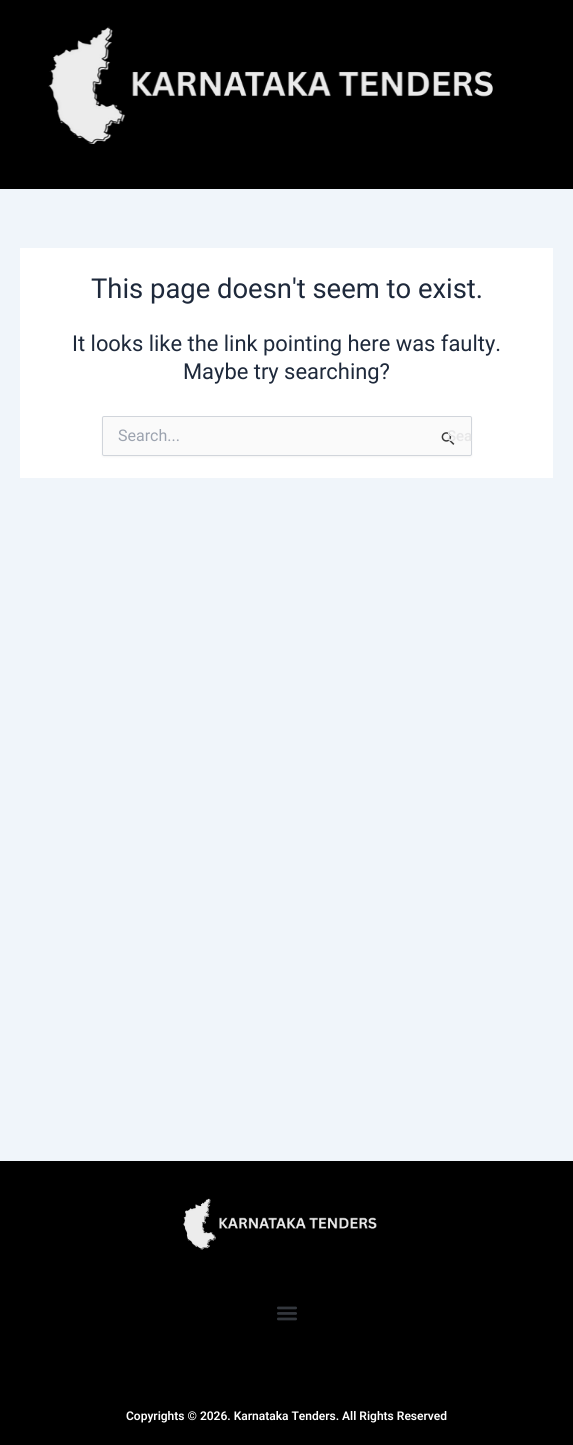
#include <cairo.h>
#include <math.h>
#include <stddef.h>


static void ink(cairo_t *ctx, unsigned color) {
    cairo_set_source_rgb(ctx, (color >> 16) / 255.0, (color >> 8 & 255) / 255.0, (color & 255) / 255.0);
}

static void round_path(cairo_t *ctx, double x, double y, double w, double h, double r) {
    cairo_new_sub_path(ctx);
    cairo_arc(ctx, x + w - r, y + h - r, r, 0, M_PI / 2);
    cairo_arc(ctx, x + r, y + h - r, r, M_PI / 2, M_PI);
    cairo_arc(ctx, x + r, y + r, r, M_PI, 1.5 * M_PI);
    cairo_arc(ctx, x + w - r, y + r, r, 1.5 * M_PI, 2 * M_PI);
    cairo_close_path(ctx);
}

static void blur_box(cairo_t *ctx, double x, double y, double w, double h, double r, double blur, double alpha) {
    cairo_push_group_with_content(ctx, CAIRO_CONTENT_ALPHA);
    cairo_set_operator(ctx, CAIRO_OPERATOR_SOURCE);
    for (int i = 15; i >= -15 && fmin(w, h) + blur * i / 3 > 0; i -= 2) {
        double e = blur * i / 6;
        cairo_set_source_rgba(ctx, 0, 0, 0, alpha * erfc((i - 1) / 8.5) / 2);
        round_path(ctx, x - e, y - e, w + 2 * e, h + 2 * e, fmax(0, fmin(r + e + blur * .6, fmin(w, h) / 2 + e)));
        cairo_fill(ctx);
    }
    cairo_pattern_t *soft = cairo_pop_group(ctx);
    cairo_mask(ctx, soft);
    cairo_pattern_destroy(soft);
}

static void paste(cairo_t *ctx, const char *path, double x, double y, double w, double h) {
    cairo_surface_t *image = cairo_image_surface_create_from_png(path);
    cairo_save(ctx);
    cairo_set_source_surface(ctx, image, x, y);
    cairo_rectangle(ctx, x, y, w, h);
    cairo_fill(ctx);
    cairo_restore(ctx);
    cairo_surface_destroy(image);
}

int main(void) {
    cairo_surface_t *surface = cairo_image_surface_create(CAIRO_FORMAT_RGB24, 573, 1445);
    cairo_t *ctx = cairo_create(surface);
    cairo_font_options_t *options = cairo_font_options_create();
    cairo_font_options_set_hint_metrics(options, CAIRO_HINT_METRICS_OFF);
    cairo_font_options_set_hint_style(options, CAIRO_HINT_STYLE_NONE);
    cairo_set_font_options(ctx, options);
    cairo_set_miter_limit(ctx, 4);
    ink(ctx, 0xF0F5FA);
    cairo_paint(ctx);
    ink(ctx, 0x000000);
    cairo_rectangle(ctx, 0, 0, 573, 189);
    cairo_fill(ctx);
    paste(ctx, "media/1.png", 48, 26, 445, 118);
    ink(ctx, 0xFFFFFF);
    cairo_rectangle(ctx, 20, 248, 533, 230);
    cairo_fill(ctx);
    cairo_select_font_face(ctx, "Roboto", CAIRO_FONT_SLANT_NORMAL, CAIRO_FONT_WEIGHT_NORMAL);
    cairo_set_font_size(ctx, 27.4);
    ink(ctx, 0x1E293B);
    cairo_move_to(ctx, 91, 298);
    cairo_show_text(ctx, "This page doesn't seem to exist.");
    cairo_set_font_size(ctx, 21.9);
    cairo_move_to(ctx, 72, 351);
    cairo_show_text(ctx, "It looks like the link pointing here was faulty.");
    cairo_move_to(ctx, 183, 379);
    cairo_show_text(ctx, "Maybe try searching?");
    ink(ctx, 0x000000);
    blur_box(ctx, 102, 417, 370, 40, 2, 1, 0.05);
    ink(ctx, 0xFAFAFA);
    round_path(ctx, 102.5, 416.5, 369, 39, 1.5);
    cairo_fill_preserve(ctx);
    ink(ctx, 0xD1D5DB);
    cairo_set_line_width(ctx, 1);
    cairo_stroke(ctx);
    cairo_set_font_size(ctx, 16);
    ink(ctx, 0x9CA3AF);
    cairo_move_to(ctx, 118, 441);
    cairo_show_text(ctx, "Search...");
    paste(ctx, "media/2.png", 441, 432, 14, 13);
    cairo_select_font_face(ctx, "Roboto Medium", CAIRO_FONT_SLANT_NORMAL, CAIRO_FONT_WEIGHT_NORMAL);
    cairo_set_font_size(ctx, 15);
    ink(ctx, 0xE7E7E8);
    cairo_move_to(ctx, 447, 441);
    cairo_show_text(ctx, "Sea");
    ink(ctx, 0x000000);
    cairo_rectangle(ctx, 0, 1161, 573, 284);
    cairo_fill(ctx);
    paste(ctx, "media/3.png", 182, 1198, 195, 52);
    paste(ctx, "media/4.png", 277, 1306, 20, 15);
    cairo_select_font_face(ctx, "Roboto SemiBold", CAIRO_FONT_SLANT_NORMAL, CAIRO_FONT_WEIGHT_NORMAL);
    cairo_set_font_size(ctx, 12);
    ink(ctx, 0xFFFFFF);
    cairo_move_to(ctx, 126, 1420);
    cairo_show_text(ctx, "Copyrights © 2026. Karnataka Tenders. All Rights Reserved");
    cairo_surface_write_to_png(surface, "image.png");
    cairo_font_options_destroy(options);
    cairo_destroy(ctx);
    cairo_surface_destroy(surface);
    return 0;
}
